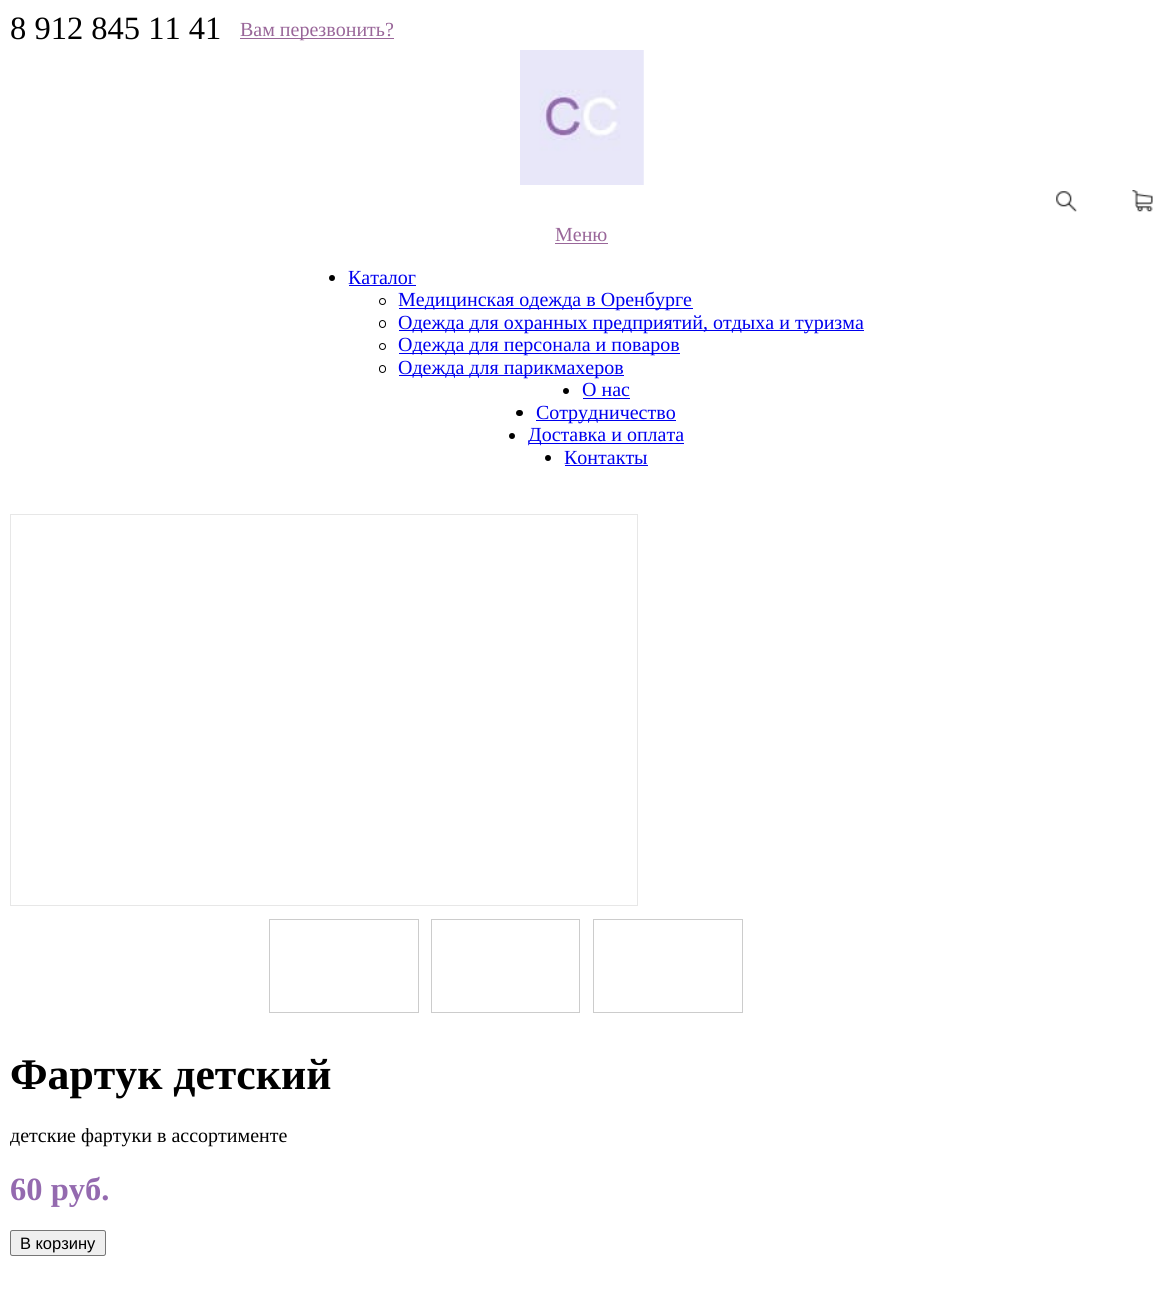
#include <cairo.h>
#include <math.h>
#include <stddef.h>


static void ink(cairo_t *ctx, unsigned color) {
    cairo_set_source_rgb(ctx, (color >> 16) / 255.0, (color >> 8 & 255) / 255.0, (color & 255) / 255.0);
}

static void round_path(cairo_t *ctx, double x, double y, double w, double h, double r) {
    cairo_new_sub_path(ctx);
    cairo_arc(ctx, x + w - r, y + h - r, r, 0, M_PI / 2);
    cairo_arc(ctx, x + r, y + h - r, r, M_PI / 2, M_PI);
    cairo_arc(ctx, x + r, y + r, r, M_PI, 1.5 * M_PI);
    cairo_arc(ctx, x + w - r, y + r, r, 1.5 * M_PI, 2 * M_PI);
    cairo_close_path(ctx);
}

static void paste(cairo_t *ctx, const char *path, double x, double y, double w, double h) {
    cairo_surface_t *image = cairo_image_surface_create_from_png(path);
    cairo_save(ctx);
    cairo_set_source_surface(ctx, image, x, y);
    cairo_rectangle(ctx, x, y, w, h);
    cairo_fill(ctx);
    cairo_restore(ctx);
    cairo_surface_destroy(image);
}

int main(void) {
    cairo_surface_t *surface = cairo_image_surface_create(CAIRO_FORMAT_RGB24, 1162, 1311);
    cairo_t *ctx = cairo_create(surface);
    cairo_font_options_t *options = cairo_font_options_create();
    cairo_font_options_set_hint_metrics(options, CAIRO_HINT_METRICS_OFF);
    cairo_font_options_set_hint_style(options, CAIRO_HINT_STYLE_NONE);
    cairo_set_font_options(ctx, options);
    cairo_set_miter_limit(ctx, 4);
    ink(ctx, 0xFFFFFF);
    cairo_paint(ctx);
    cairo_select_font_face(ctx, "Liberation Serif", CAIRO_FONT_SLANT_NORMAL, CAIRO_FONT_WEIGHT_NORMAL);
    cairo_set_font_size(ctx, 32.5);
    ink(ctx, 0x000000);
    cairo_move_to(ctx, 10, 39);
    cairo_show_text(ctx, "8 912 845 11 41");
    ink(ctx, 0x996699);
    cairo_rectangle(ctx, 240, 38, 154, 1);
    cairo_fill(ctx);
    cairo_set_font_size(ctx, 20);
    cairo_move_to(ctx, 240, 36);
    cairo_show_text(ctx, "Вам перезвонить?");
    paste(ctx, "media/1.png", 520, 50, 124, 135);
    paste(ctx, "media/2.png", 1056, 191, 21, 21);
    paste(ctx, "media/3.png", 1132, 190, 21, 22);
    cairo_move_to(ctx, 555, 241);
    cairo_show_text(ctx, "Меню");
    cairo_rectangle(ctx, 555, 243, 53, 1);
    cairo_fill(ctx);
    ink(ctx, 0x000000);
    cairo_arc(ctx, 332, 278, 3, 0, 2 * M_PI);
    cairo_fill(ctx);
    ink(ctx, 0x0000EE);
    cairo_move_to(ctx, 348, 284);
    cairo_show_text(ctx, "Каталог");
    cairo_rectangle(ctx, 349, 285, 67, 1);
    cairo_fill(ctx);
    cairo_arc(ctx, 382.5, 301.5, 3, 0, 2 * M_PI);
    ink(ctx, 0x000000);
    cairo_set_line_width(ctx, 1);
    cairo_stroke(ctx);
    ink(ctx, 0x0000EE);
    cairo_rectangle(ctx, 399, 308, 294, 1);
    cairo_fill(ctx);
    cairo_move_to(ctx, 398, 306);
    cairo_show_text(ctx, "Медицинская одежда в Оренбурге");
    round_path(ctx, 379.5, 320.5, 6, 7, 3);
    ink(ctx, 0x000000);
    cairo_stroke(ctx);
    ink(ctx, 0x0000EE);
    cairo_rectangle(ctx, 399, 330, 465, 1);
    cairo_fill(ctx);
    cairo_move_to(ctx, 398, 329);
    cairo_show_text(ctx, "Одежда для охранных предприятий, отдыха и туризма");
    cairo_new_path(ctx);
    cairo_arc(ctx, 382.5, 346.5, 3, 0, 2 * M_PI);
    ink(ctx, 0x000000);
    cairo_stroke(ctx);
    ink(ctx, 0x0000EE);
    cairo_rectangle(ctx, 399, 353, 281, 1);
    cairo_fill(ctx);
    cairo_move_to(ctx, 398, 351);
    cairo_show_text(ctx, "Одежда для персонала и поваров");
    round_path(ctx, 379.5, 365.5, 6, 7, 3);
    ink(ctx, 0x000000);
    cairo_stroke(ctx);
    ink(ctx, 0x0000EE);
    cairo_rectangle(ctx, 399, 375, 225, 1);
    cairo_fill(ctx);
    cairo_move_to(ctx, 398, 374);
    cairo_show_text(ctx, "Одежда для парикмахеров");
    ink(ctx, 0x000000);
    cairo_new_path(ctx);
    cairo_arc(ctx, 566, 391, 3, 0, 2 * M_PI);
    cairo_fill(ctx);
    ink(ctx, 0x0000EE);
    cairo_move_to(ctx, 582, 396);
    cairo_show_text(ctx, "О нас");
    cairo_rectangle(ctx, 583, 398, 47, 1);
    cairo_fill(ctx);
    ink(ctx, 0x000000);
    round_path(ctx, 516, 410, 7, 6, 3);
    cairo_fill(ctx);
    ink(ctx, 0x0000EE);
    cairo_rectangle(ctx, 536, 420, 140, 1);
    cairo_fill(ctx);
    cairo_move_to(ctx, 536, 419);
    cairo_show_text(ctx, "Сотрудничество");
    ink(ctx, 0x000000);
    cairo_new_path(ctx);
    cairo_arc(ctx, 512, 436, 3, 0, 2 * M_PI);
    cairo_fill(ctx);
    ink(ctx, 0x0000EE);
    cairo_rectangle(ctx, 529, 443, 155, 1);
    cairo_fill(ctx);
    cairo_move_to(ctx, 528, 441);
    cairo_show_text(ctx, "Доставка и оплата");
    ink(ctx, 0x000000);
    cairo_new_path(ctx);
    cairo_arc(ctx, 548, 458, 3, 0, 2 * M_PI);
    cairo_fill(ctx);
    ink(ctx, 0x0000EE);
    cairo_move_to(ctx, 564, 464);
    cairo_show_text(ctx, "Контакты");
    cairo_rectangle(ctx, 565, 465, 83, 1);
    cairo_fill(ctx);
    cairo_rectangle(ctx, 10.5, 514.5, 627, 391);
    ink(ctx, 0xE7E7E7);
    cairo_stroke(ctx);
    cairo_rectangle(ctx, 269.5, 919.5, 149, 93);
    ink(ctx, 0xCCCCCC);
    cairo_stroke(ctx);
    cairo_rectangle(ctx, 431.5, 919.5, 148, 93);
    cairo_stroke(ctx);
    cairo_rectangle(ctx, 593.5, 919.5, 149, 93);
    cairo_stroke(ctx);
    cairo_select_font_face(ctx, "Liberation Serif", CAIRO_FONT_SLANT_NORMAL, CAIRO_FONT_WEIGHT_BOLD);
    cairo_set_font_size(ctx, 43.75);
    ink(ctx, 0x000000);
    cairo_move_to(ctx, 10, 1089);
    cairo_show_text(ctx, "Фартук детский");
    cairo_select_font_face(ctx, "Liberation Serif", CAIRO_FONT_SLANT_NORMAL, CAIRO_FONT_WEIGHT_NORMAL);
    cairo_set_font_size(ctx, 20);
    cairo_move_to(ctx, 10, 1142);
    cairo_show_text(ctx, "детские фартуки в ассортименте");
    cairo_select_font_face(ctx, "Liberation Serif", CAIRO_FONT_SLANT_NORMAL, CAIRO_FONT_WEIGHT_BOLD);
    cairo_set_font_size(ctx, 32.5);
    ink(ctx, 0x946AAF);
    cairo_move_to(ctx, 10, 1200);
    cairo_show_text(ctx, "60 руб.");
    ink(ctx, 0xEFEFEF);
    round_path(ctx, 10.5, 1230.5, 95, 25, 2);
    cairo_fill_preserve(ctx);
    ink(ctx, 0x767676);
    cairo_stroke(ctx);
    cairo_select_font_face(ctx, "Liberation Sans", CAIRO_FONT_SLANT_NORMAL, CAIRO_FONT_WEIGHT_NORMAL);
    cairo_set_font_size(ctx, 16.5);
    ink(ctx, 0x000000);
    cairo_move_to(ctx, 20, 1249);
    cairo_show_text(ctx, "В корзину");
    cairo_surface_write_to_png(surface, "image.png");
    cairo_font_options_destroy(options);
    cairo_destroy(ctx);
    cairo_surface_destroy(surface);
    return 0;
}
